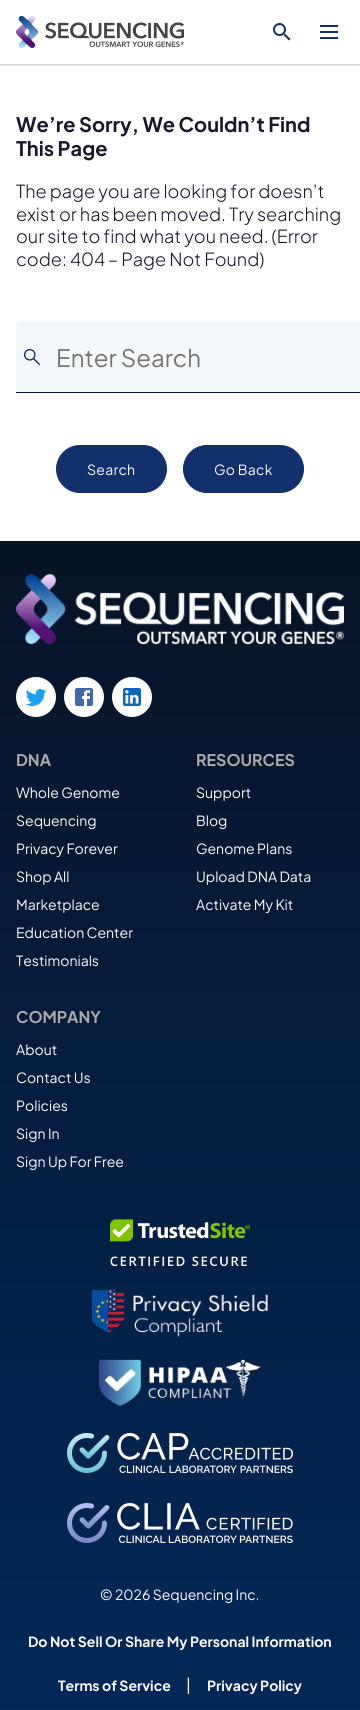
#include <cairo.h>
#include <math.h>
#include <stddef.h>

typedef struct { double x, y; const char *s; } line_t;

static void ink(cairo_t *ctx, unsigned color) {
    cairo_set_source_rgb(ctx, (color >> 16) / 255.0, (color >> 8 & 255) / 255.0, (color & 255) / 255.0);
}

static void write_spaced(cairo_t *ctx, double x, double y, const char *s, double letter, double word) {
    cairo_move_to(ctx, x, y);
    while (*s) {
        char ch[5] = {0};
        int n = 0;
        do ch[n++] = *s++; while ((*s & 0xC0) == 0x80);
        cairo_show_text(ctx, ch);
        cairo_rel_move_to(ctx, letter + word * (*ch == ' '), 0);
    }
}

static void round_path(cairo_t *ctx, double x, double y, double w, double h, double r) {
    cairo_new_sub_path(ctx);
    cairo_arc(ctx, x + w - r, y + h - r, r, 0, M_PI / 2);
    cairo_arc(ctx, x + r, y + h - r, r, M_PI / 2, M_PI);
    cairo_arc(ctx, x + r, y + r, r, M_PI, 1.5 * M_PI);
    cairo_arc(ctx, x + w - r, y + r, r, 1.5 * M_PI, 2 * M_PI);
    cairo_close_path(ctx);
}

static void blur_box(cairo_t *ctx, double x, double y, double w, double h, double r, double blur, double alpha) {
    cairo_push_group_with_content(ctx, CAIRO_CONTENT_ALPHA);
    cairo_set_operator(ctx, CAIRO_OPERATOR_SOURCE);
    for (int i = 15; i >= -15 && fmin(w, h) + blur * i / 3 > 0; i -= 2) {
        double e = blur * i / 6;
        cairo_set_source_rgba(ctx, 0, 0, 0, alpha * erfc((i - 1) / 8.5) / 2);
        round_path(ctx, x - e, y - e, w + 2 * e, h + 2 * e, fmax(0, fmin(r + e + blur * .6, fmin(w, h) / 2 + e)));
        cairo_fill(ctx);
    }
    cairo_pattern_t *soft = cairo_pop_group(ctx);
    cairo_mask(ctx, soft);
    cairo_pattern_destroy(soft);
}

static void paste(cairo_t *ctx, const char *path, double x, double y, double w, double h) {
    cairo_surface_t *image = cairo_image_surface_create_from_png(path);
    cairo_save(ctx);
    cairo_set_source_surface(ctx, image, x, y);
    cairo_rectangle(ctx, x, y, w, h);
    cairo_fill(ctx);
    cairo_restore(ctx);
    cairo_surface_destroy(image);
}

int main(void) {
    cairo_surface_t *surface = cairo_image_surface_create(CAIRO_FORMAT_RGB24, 360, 1710);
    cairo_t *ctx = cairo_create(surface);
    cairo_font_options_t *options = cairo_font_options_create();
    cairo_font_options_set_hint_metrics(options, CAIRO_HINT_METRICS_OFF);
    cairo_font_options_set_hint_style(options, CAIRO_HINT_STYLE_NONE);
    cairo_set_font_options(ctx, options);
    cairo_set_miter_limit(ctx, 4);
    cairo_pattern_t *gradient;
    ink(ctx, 0xFFFFFF);
    cairo_paint(ctx);
    cairo_save(ctx);
    cairo_rectangle(ctx, 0, 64, 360, 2);
    cairo_clip(ctx);
    ink(ctx, 0x000000);
    blur_box(ctx, 0, 1, 360, 64, 0, 0.5, 0.2);
    cairo_restore(ctx);
    paste(ctx, "media/1.png", 16, 16, 168, 32);
    paste(ctx, "media/2.png", 273, 23, 18, 18);
    paste(ctx, "media/3.png", 320, 25, 18, 14);
    cairo_select_font_face(ctx, "Plus Jakarta Sans", CAIRO_FONT_SLANT_NORMAL, CAIRO_FONT_WEIGHT_BOLD);
    cairo_set_font_size(ctx, 20);
    ink(ctx, 0x18172B);
    cairo_move_to(ctx, 16, 132);
    cairo_show_text(ctx, "We’re Sorry, We Couldn’t Find");
    cairo_move_to(ctx, 16, 156);
    cairo_show_text(ctx, "This Page");
    cairo_select_font_face(ctx, "Plus Jakarta Sans Light", CAIRO_FONT_SLANT_NORMAL, CAIRO_FONT_WEIGHT_NORMAL);
    cairo_set_font_size(ctx, 18);
    {
        static const line_t items[] = {
            {16, 198, "The page you are looking for doesn’t"},
            {16, 221, "exist or has been moved. Try searching"},
            {16, 243, "our site to find what you need. (Error"},
            {16, 266, "code: 404 – Page Not Found)"},
        };
        for (size_t i = 0; i < sizeof items / sizeof *items; i++) {
            cairo_move_to(ctx, items[i].x, items[i].y);
            cairo_show_text(ctx, items[i].s);
        }
    }
    ink(ctx, 0xF5F8FA);
    cairo_new_path(ctx);
    cairo_move_to(ctx, 20, 321);
    cairo_line_to(ctx, 360, 321);
    cairo_curve_to(ctx, 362, 321, 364, 323, 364, 325);
    cairo_line_to(ctx, 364, 393);
    cairo_line_to(ctx, 16, 393);
    cairo_line_to(ctx, 16, 325);
    cairo_curve_to(ctx, 16, 323, 18, 321, 20, 321);
    cairo_close_path(ctx);
    cairo_fill(ctx);
    paste(ctx, "media/4.png", 24, 349, 16, 16);
    ink(ctx, 0x07153D);
    cairo_rectangle(ctx, 16, 392, 344, 1);
    cairo_fill(ctx);
    cairo_select_font_face(ctx, "Plus Jakarta Sans", CAIRO_FONT_SLANT_NORMAL, CAIRO_FONT_WEIGHT_NORMAL);
    cairo_set_font_size(ctx, 24);
    ink(ctx, 0x757575);
    cairo_move_to(ctx, 56, 367);
    cairo_show_text(ctx, "Enter Search");
    ink(ctx, 0x12306C);
    round_path(ctx, 56.5, 445.5, 110, 47, 23.5);
    cairo_fill_preserve(ctx);
    cairo_set_line_width(ctx, 1);
    cairo_stroke(ctx);
    cairo_set_font_size(ctx, 14);
    ink(ctx, 0xFBFCFF);
    write_spaced(ctx, 87, 475, "Search", 0.25, 0);
    ink(ctx, 0x12306C);
    round_path(ctx, 183.5, 445.5, 120, 47, 23.5);
    cairo_fill_preserve(ctx);
    cairo_stroke(ctx);
    ink(ctx, 0xFBFCFF);
    write_spaced(ctx, 214, 475, "Go Back", 0.25, 0);
    gradient = cairo_pattern_create_linear(180, 541, 180, 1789);
    cairo_pattern_add_color_stop_rgba(gradient, 0, 0.024, 0.078, 0.149, 1);
    cairo_pattern_add_color_stop_rgba(gradient, 1, 0.012, 0.161, 0.361, 1);
    cairo_set_source(ctx, gradient);
    cairo_pattern_destroy(gradient);
    cairo_rectangle(ctx, 0, 541, 360, 1169);
    cairo_fill(ctx);
    paste(ctx, "media/5.png", 16, 574, 328, 71);
    ink(ctx, 0xFFFFFF);
    cairo_arc(ctx, 36, 697, 20, 0, 2 * M_PI);
    cairo_fill(ctx);
    paste(ctx, "media/6.png", 25, 689, 22, 17);
    cairo_arc(ctx, 84, 697, 20, 0, 2 * M_PI);
    cairo_fill(ctx);
    paste(ctx, "media/7.png", 75, 688, 18, 18);
    cairo_arc(ctx, 132, 697, 20, 0, 2 * M_PI);
    cairo_fill(ctx);
    paste(ctx, "media/8.png", 123, 688, 18, 18);
    cairo_select_font_face(ctx, "Plus Jakarta Sans", CAIRO_FONT_SLANT_NORMAL, CAIRO_FONT_WEIGHT_BOLD);
    cairo_set_font_size(ctx, 16);
    ink(ctx, 0xAAAAAA);
    cairo_move_to(ctx, 16, 766);
    cairo_show_text(ctx, "DNA");
    cairo_select_font_face(ctx, "Plus Jakarta Sans", CAIRO_FONT_SLANT_NORMAL, CAIRO_FONT_WEIGHT_NORMAL);
    cairo_set_font_size(ctx, 14);
    ink(ctx, 0xFBFCFF);
    {
        static const line_t items[] = {
            {16, 798, "Whole Genome"},
            {16, 826, "Sequencing"},
            {16, 854, "Privacy Forever"},
            {16, 882, "Shop All"},
            {16, 910, "Marketplace"},
            {16, 938, "Education Center"},
            {16, 966, "Testimonials"},
        };
        for (size_t i = 0; i < sizeof items / sizeof *items; i++) {
            cairo_move_to(ctx, items[i].x, items[i].y);
            cairo_show_text(ctx, items[i].s);
        }
    }
    cairo_select_font_face(ctx, "Plus Jakarta Sans", CAIRO_FONT_SLANT_NORMAL, CAIRO_FONT_WEIGHT_BOLD);
    cairo_set_font_size(ctx, 16);
    ink(ctx, 0xAAAAAA);
    cairo_move_to(ctx, 196, 766);
    cairo_show_text(ctx, "RESOURCES");
    cairo_select_font_face(ctx, "Plus Jakarta Sans", CAIRO_FONT_SLANT_NORMAL, CAIRO_FONT_WEIGHT_NORMAL);
    cairo_set_font_size(ctx, 14);
    ink(ctx, 0xFBFCFF);
    {
        static const line_t items[] = {
            {196, 798, "Support"},
            {196, 826, "Blog"},
            {196, 854, "Genome Plans"},
            {196, 882, "Upload DNA Data"},
            {196, 910, "Activate My Kit"},
        };
        for (size_t i = 0; i < sizeof items / sizeof *items; i++) {
            cairo_move_to(ctx, items[i].x, items[i].y);
            cairo_show_text(ctx, items[i].s);
        }
    }
    cairo_select_font_face(ctx, "Plus Jakarta Sans", CAIRO_FONT_SLANT_NORMAL, CAIRO_FONT_WEIGHT_BOLD);
    cairo_set_font_size(ctx, 16);
    ink(ctx, 0xAAAAAA);
    cairo_move_to(ctx, 16, 1023);
    cairo_show_text(ctx, "COMPANY");
    cairo_select_font_face(ctx, "Plus Jakarta Sans", CAIRO_FONT_SLANT_NORMAL, CAIRO_FONT_WEIGHT_NORMAL);
    cairo_set_font_size(ctx, 14);
    ink(ctx, 0xFBFCFF);
    {
        static const line_t items[] = {
            {16, 1055, "About"},
            {16, 1083, "Contact Us"},
            {16, 1111, "Policies"},
            {16, 1139, "Sign In"},
            {16, 1167, "Sign Up For Free"},
        };
        for (size_t i = 0; i < sizeof items / sizeof *items; i++) {
            cairo_move_to(ctx, items[i].x, items[i].y);
            cairo_show_text(ctx, items[i].s);
        }
    }
    paste(ctx, "media/9.png", 110, 1219, 140, 48);
    paste(ctx, "media/10.png", 92, 1289, 176, 48);
    paste(ctx, "media/11.png", 99, 1359, 162, 48);
    paste(ctx, "media/12.png", 67, 1433, 226, 40);
    paste(ctx, "media/13.png", 67, 1503, 226, 40);
    cairo_move_to(ctx, 100, 1600);
    cairo_show_text(ctx, "© 2026 Sequencing Inc.");
    cairo_select_font_face(ctx, "Plus Jakarta Sans", CAIRO_FONT_SLANT_NORMAL, CAIRO_FONT_WEIGHT_BOLD);
    cairo_move_to(ctx, 28, 1647);
    cairo_show_text(ctx, "Do Not Sell Or Share My Personal Information");
    cairo_move_to(ctx, 58, 1691);
    cairo_show_text(ctx, "Terms of Service");
    cairo_select_font_face(ctx, "Plus Jakarta Sans", CAIRO_FONT_SLANT_NORMAL, CAIRO_FONT_WEIGHT_NORMAL);
    cairo_set_font_size(ctx, 16);
    cairo_move_to(ctx, 186, 1691);
    cairo_show_text(ctx, "|");
    cairo_select_font_face(ctx, "Plus Jakarta Sans", CAIRO_FONT_SLANT_NORMAL, CAIRO_FONT_WEIGHT_BOLD);
    cairo_set_font_size(ctx, 14);
    cairo_move_to(ctx, 207, 1691);
    cairo_show_text(ctx, "Privacy Policy");
    cairo_surface_write_to_png(surface, "image.png");
    cairo_font_options_destroy(options);
    cairo_destroy(ctx);
    cairo_surface_destroy(surface);
    return 0;
}
